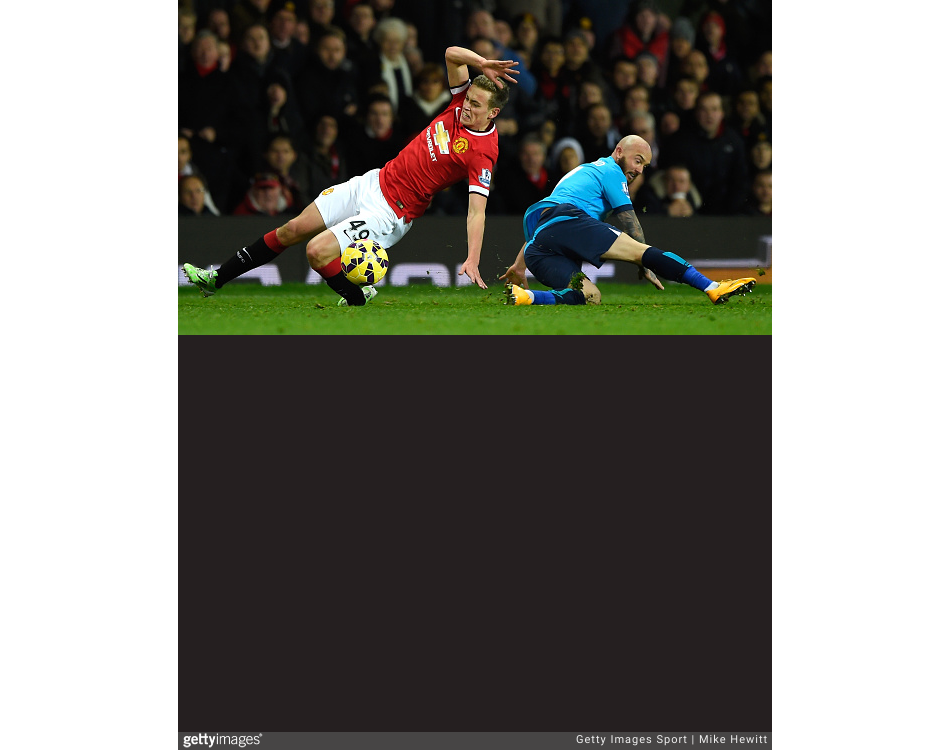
#include <cairo.h>
#include <math.h>
#include <stddef.h>


static void ink(cairo_t *ctx, unsigned color) {
    cairo_set_source_rgb(ctx, (color >> 16) / 255.0, (color >> 8 & 255) / 255.0, (color & 255) / 255.0);
}

static void write_spaced(cairo_t *ctx, double x, double y, const char *s, double letter, double word) {
    cairo_move_to(ctx, x, y);
    while (*s) {
        char ch[5] = {0};
        int n = 0;
        do ch[n++] = *s++; while ((*s & 0xC0) == 0x80);
        cairo_show_text(ctx, ch);
        cairo_rel_move_to(ctx, letter + word * (*ch == ' '), 0);
    }
}

static void paste(cairo_t *ctx, const char *path, double x, double y, double w, double h) {
    cairo_surface_t *image = cairo_image_surface_create_from_png(path);
    cairo_save(ctx);
    cairo_set_source_surface(ctx, image, x, y);
    cairo_rectangle(ctx, x, y, w, h);
    cairo_fill(ctx);
    cairo_restore(ctx);
    cairo_surface_destroy(image);
}

int main(void) {
    cairo_surface_t *surface = cairo_image_surface_create(CAIRO_FORMAT_RGB24, 950, 750);
    cairo_t *ctx = cairo_create(surface);
    cairo_font_options_t *options = cairo_font_options_create();
    cairo_font_options_set_hint_metrics(options, CAIRO_HINT_METRICS_OFF);
    cairo_font_options_set_hint_style(options, CAIRO_HINT_STYLE_NONE);
    cairo_set_font_options(ctx, options);
    cairo_set_miter_limit(ctx, 4);
    ink(ctx, 0xFFFFFF);
    cairo_paint(ctx);
    ink(ctx, 0x251F20);
    cairo_rectangle(ctx, 178, 335, 594, 397);
    cairo_fill(ctx);
    paste(ctx, "media/1.png", 178, 0, 594, 335);
    ink(ctx, 0x474545);
    cairo_rectangle(ctx, 178, 732, 594, 18);
    cairo_fill(ctx);
    paste(ctx, "media/2.png", 183, 733, 80, 15);
    cairo_select_font_face(ctx, "Roboto", CAIRO_FONT_SLANT_NORMAL, CAIRO_FONT_WEIGHT_NORMAL);
    cairo_set_font_size(ctx, 11);
    ink(ctx, 0xEEEEEE);
    write_spaced(ctx, 576, 743, "Getty Images Sport | Mike Hewitt", 1, 0);
    cairo_surface_write_to_png(surface, "image.png");
    cairo_font_options_destroy(options);
    cairo_destroy(ctx);
    cairo_surface_destroy(surface);
    return 0;
}
